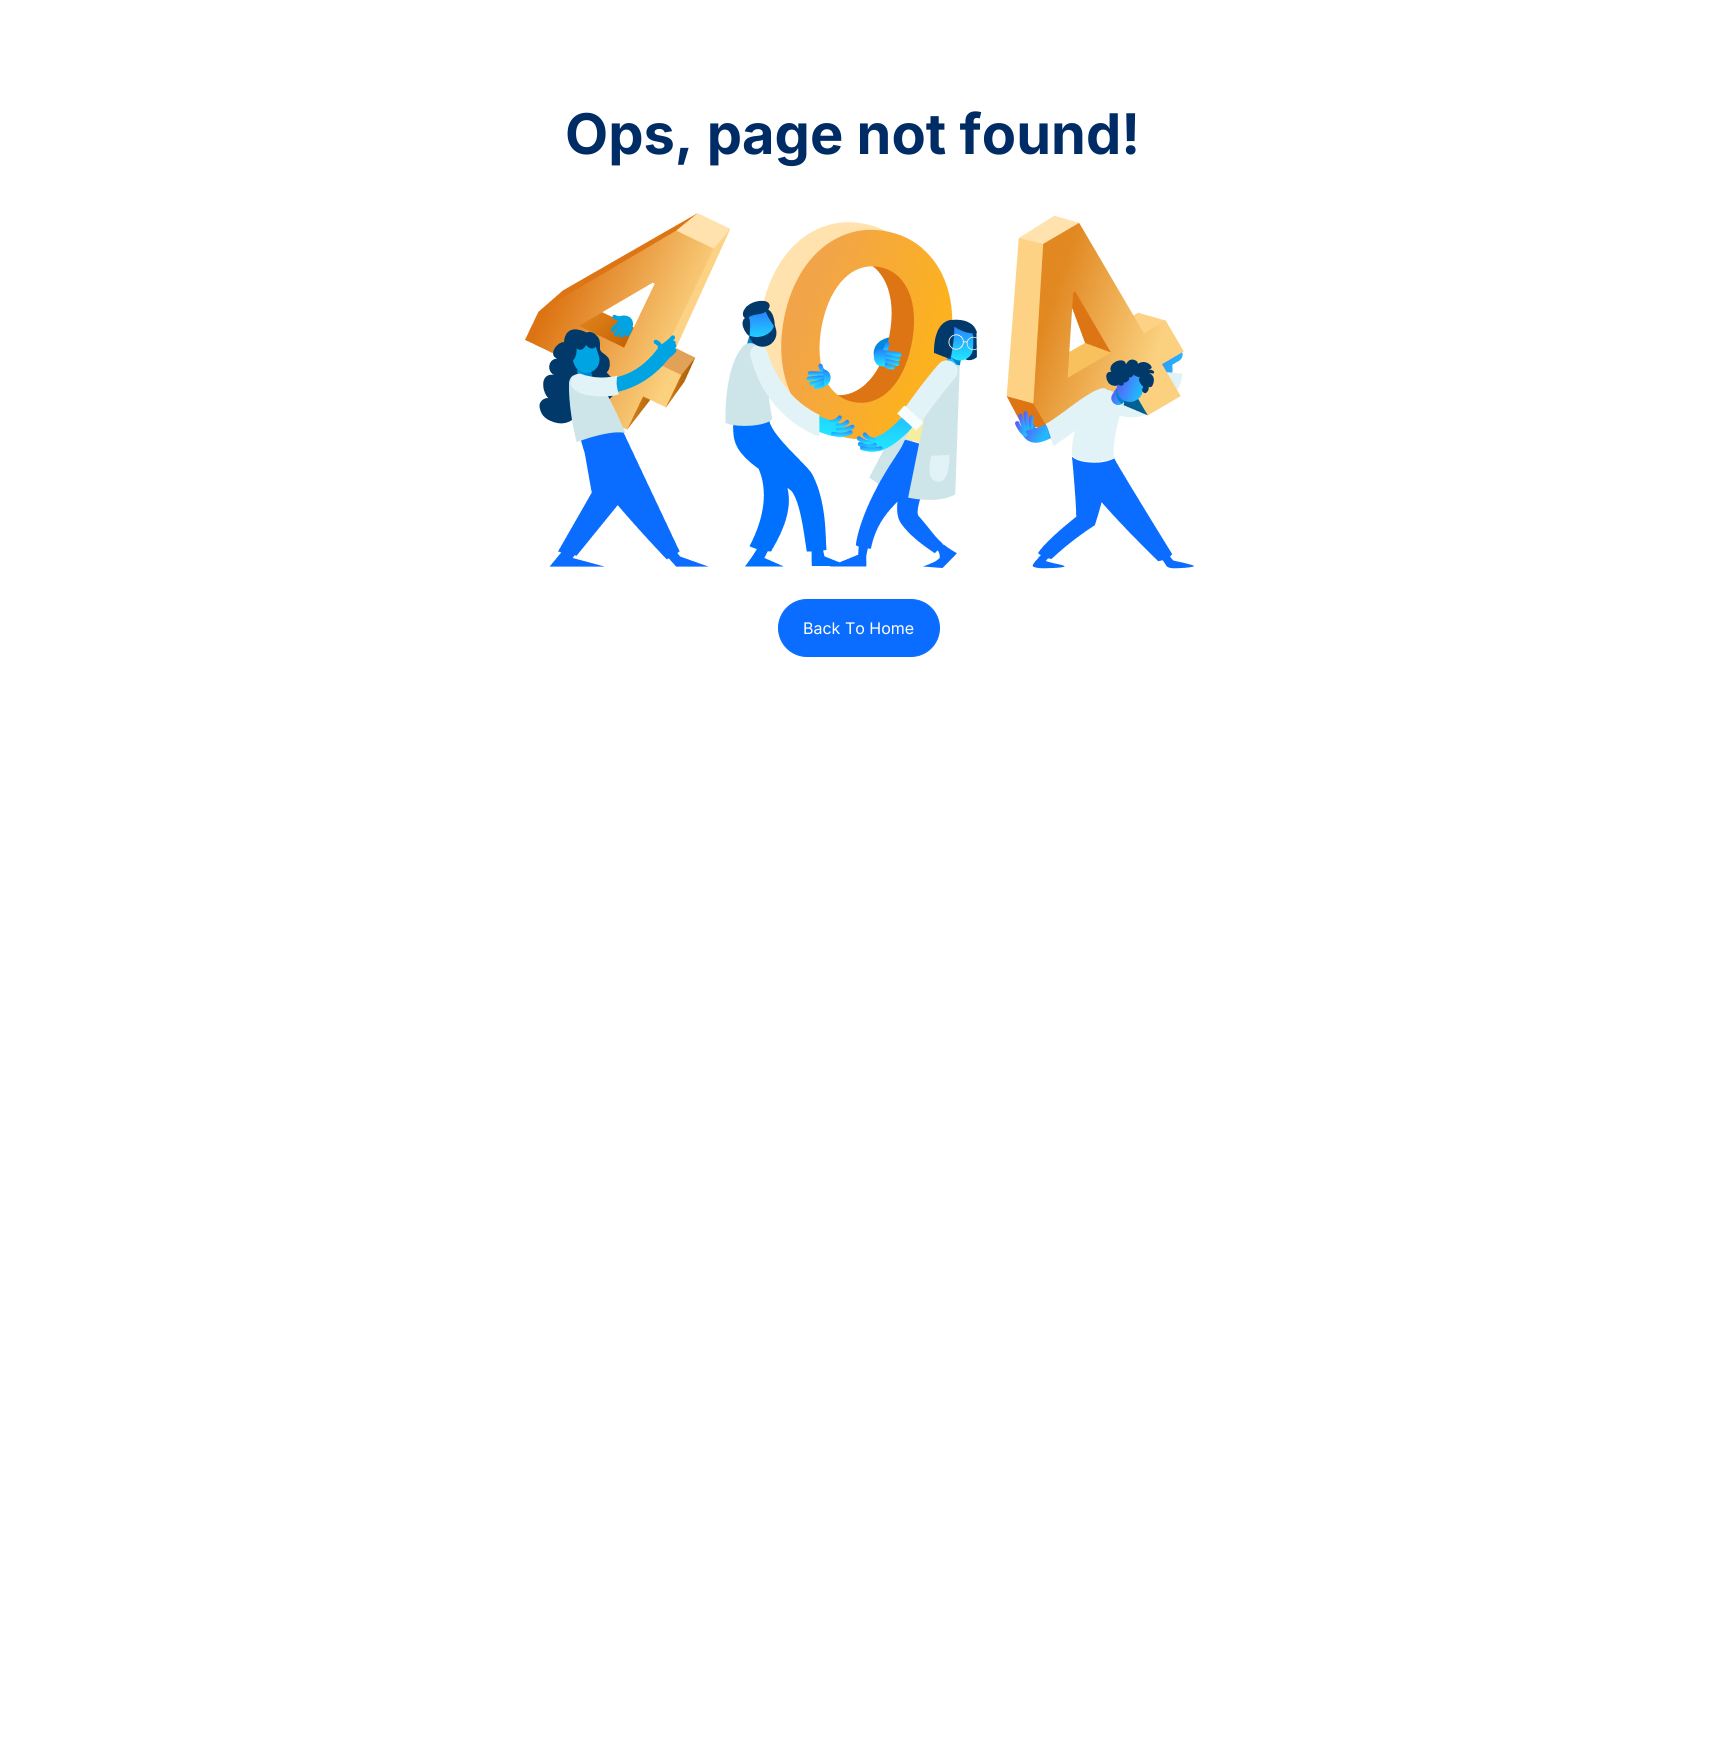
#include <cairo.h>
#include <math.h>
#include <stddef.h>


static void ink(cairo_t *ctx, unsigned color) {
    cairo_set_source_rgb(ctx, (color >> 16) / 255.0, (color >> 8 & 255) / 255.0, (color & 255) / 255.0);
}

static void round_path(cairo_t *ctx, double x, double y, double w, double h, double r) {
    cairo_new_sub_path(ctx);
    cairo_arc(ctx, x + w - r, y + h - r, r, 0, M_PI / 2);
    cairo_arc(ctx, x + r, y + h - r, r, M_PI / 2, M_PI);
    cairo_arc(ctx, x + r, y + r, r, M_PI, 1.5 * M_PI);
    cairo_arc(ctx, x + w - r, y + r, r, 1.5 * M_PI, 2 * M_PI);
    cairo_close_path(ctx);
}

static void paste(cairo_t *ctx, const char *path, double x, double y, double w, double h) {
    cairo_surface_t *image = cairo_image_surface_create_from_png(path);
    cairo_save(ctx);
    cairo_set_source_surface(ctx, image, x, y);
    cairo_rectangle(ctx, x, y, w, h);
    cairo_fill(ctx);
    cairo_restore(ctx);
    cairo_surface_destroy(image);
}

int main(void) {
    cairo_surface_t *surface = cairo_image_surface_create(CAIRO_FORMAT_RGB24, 1718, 1759);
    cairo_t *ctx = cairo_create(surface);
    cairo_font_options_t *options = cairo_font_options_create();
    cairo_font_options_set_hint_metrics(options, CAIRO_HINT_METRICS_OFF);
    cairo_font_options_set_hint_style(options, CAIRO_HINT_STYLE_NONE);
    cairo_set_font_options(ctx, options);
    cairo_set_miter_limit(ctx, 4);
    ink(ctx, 0xFFFFFF);
    cairo_paint(ctx);
    cairo_select_font_face(ctx, "Inter", CAIRO_FONT_SLANT_NORMAL, CAIRO_FONT_WEIGHT_BOLD);
    cairo_set_font_size(ctx, 56);
    ink(ctx, 0x002C66);
    cairo_move_to(ctx, 565, 154);
    cairo_show_text(ctx, "Ops, page not found!");
    paste(ctx, "media/1.png", 525, 213, 669, 356);
    ink(ctx, 0x0B6DFF);
    round_path(ctx, 778.5, 599.5, 161, 57, 28.5);
    cairo_fill_preserve(ctx);
    cairo_set_line_width(ctx, 1);
    cairo_stroke(ctx);
    cairo_select_font_face(ctx, "Inter", CAIRO_FONT_SLANT_NORMAL, CAIRO_FONT_WEIGHT_NORMAL);
    cairo_set_font_size(ctx, 16);
    ink(ctx, 0xFFFFFF);
    cairo_move_to(ctx, 803, 634);
    cairo_show_text(ctx, "Back To Home");
    cairo_surface_write_to_png(surface, "image.png");
    cairo_font_options_destroy(options);
    cairo_destroy(ctx);
    cairo_surface_destroy(surface);
    return 0;
}
